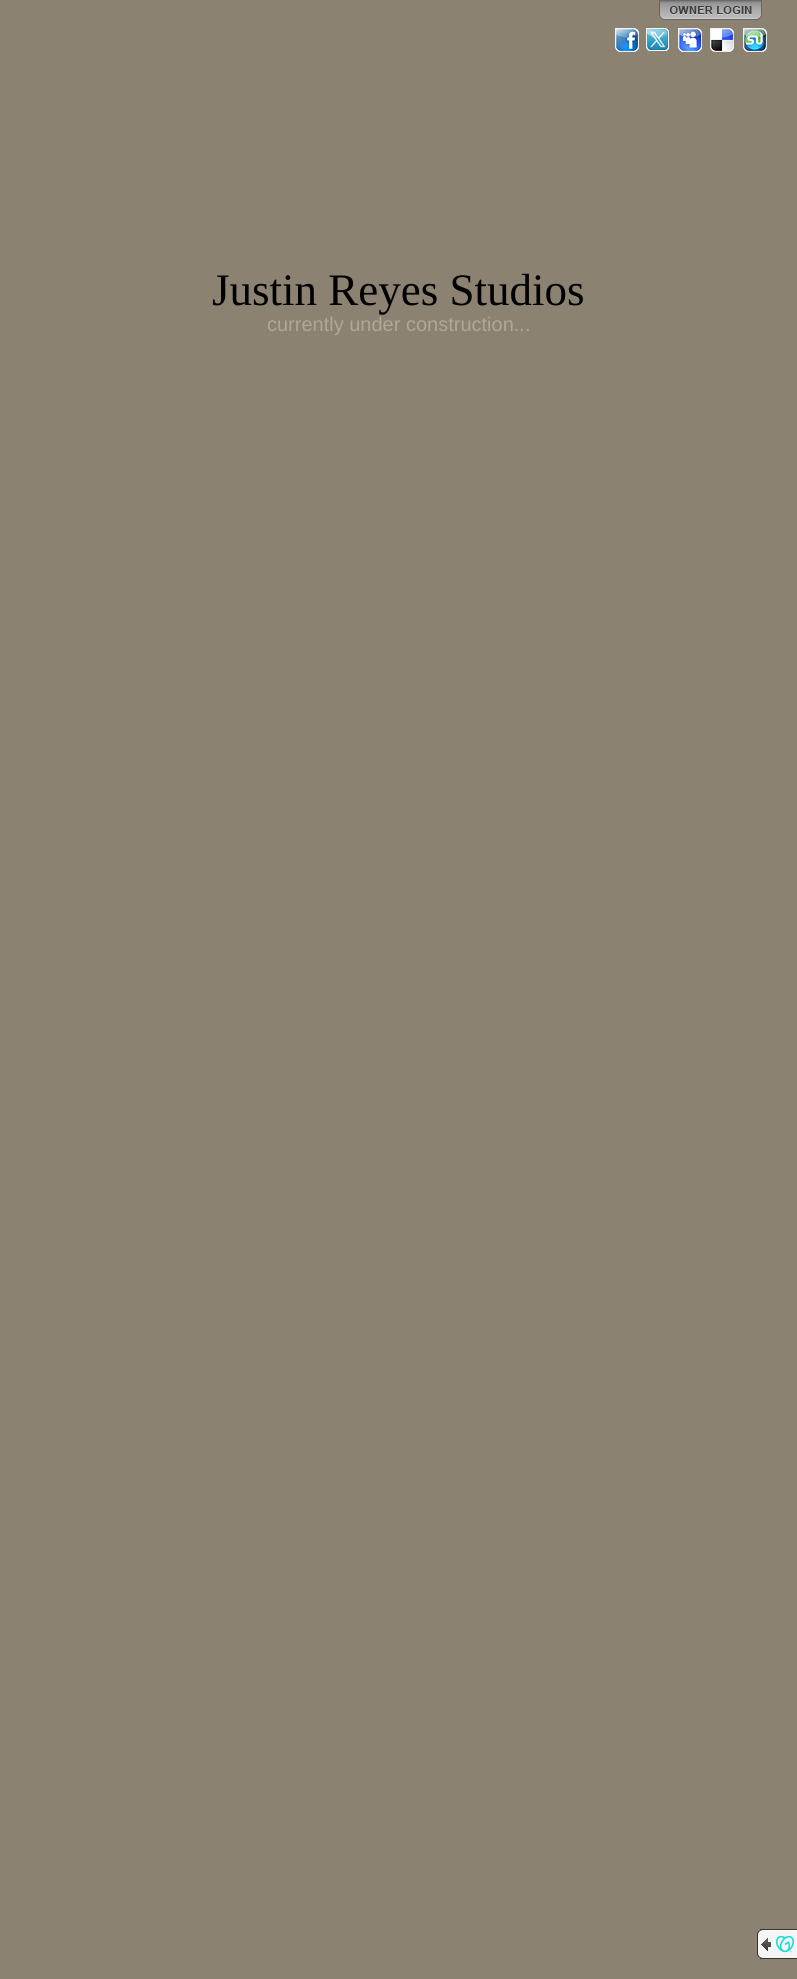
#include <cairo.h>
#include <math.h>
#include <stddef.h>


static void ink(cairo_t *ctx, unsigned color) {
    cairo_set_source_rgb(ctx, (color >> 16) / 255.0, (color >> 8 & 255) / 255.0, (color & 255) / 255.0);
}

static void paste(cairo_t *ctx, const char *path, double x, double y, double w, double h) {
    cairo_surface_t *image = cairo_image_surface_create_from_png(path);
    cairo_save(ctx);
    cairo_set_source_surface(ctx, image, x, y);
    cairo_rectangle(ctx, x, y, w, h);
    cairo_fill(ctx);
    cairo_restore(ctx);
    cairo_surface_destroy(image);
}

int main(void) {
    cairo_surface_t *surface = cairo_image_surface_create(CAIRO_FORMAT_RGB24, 797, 1979);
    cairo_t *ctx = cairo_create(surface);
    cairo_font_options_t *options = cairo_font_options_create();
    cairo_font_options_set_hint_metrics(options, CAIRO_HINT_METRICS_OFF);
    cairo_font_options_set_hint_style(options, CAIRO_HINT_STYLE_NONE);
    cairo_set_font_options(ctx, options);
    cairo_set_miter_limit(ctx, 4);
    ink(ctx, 0x8B8271);
    cairo_paint(ctx);
    paste(ctx, "media/1.png", 659, 0, 103, 20);
    paste(ctx, "media/2.png", 615, 28, 24, 24);
    paste(ctx, "media/3.png", 646, 28, 23, 23);
    paste(ctx, "media/4.png", 678, 28, 24, 24);
    paste(ctx, "media/5.png", 710, 28, 24, 24);
    paste(ctx, "media/6.png", 743, 28, 24, 24);
    cairo_select_font_face(ctx, "Liberation Serif", CAIRO_FONT_SLANT_NORMAL, CAIRO_FONT_WEIGHT_NORMAL);
    cairo_set_font_size(ctx, 45);
    ink(ctx, 0x000000);
    cairo_move_to(ctx, 212, 305);
    cairo_show_text(ctx, "Justin Reyes Studios");
    cairo_select_font_face(ctx, "Liberation Sans", CAIRO_FONT_SLANT_NORMAL, CAIRO_FONT_WEIGHT_NORMAL);
    cairo_set_font_size(ctx, 20);
    ink(ctx, 0xAFA797);
    cairo_move_to(ctx, 267, 331);
    cairo_show_text(ctx, "currently under construction...");
    paste(ctx, "media/7.png", 760, 1929, 37, 30);
    paste(ctx, "media/8.png", 757, 1930, 14, 28);
    paste(ctx, "media/9.png", 775, 1935, 20, 18);
    cairo_surface_write_to_png(surface, "image.png");
    cairo_font_options_destroy(options);
    cairo_destroy(ctx);
    cairo_surface_destroy(surface);
    return 0;
}
